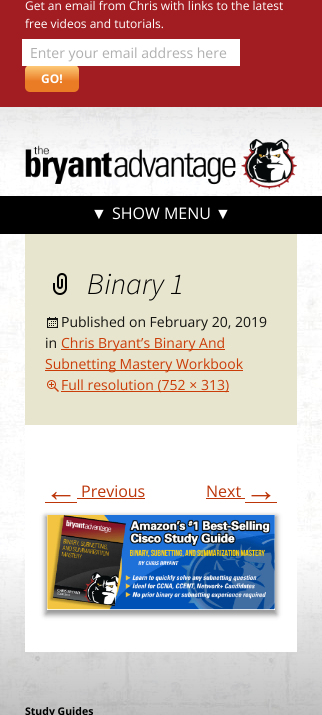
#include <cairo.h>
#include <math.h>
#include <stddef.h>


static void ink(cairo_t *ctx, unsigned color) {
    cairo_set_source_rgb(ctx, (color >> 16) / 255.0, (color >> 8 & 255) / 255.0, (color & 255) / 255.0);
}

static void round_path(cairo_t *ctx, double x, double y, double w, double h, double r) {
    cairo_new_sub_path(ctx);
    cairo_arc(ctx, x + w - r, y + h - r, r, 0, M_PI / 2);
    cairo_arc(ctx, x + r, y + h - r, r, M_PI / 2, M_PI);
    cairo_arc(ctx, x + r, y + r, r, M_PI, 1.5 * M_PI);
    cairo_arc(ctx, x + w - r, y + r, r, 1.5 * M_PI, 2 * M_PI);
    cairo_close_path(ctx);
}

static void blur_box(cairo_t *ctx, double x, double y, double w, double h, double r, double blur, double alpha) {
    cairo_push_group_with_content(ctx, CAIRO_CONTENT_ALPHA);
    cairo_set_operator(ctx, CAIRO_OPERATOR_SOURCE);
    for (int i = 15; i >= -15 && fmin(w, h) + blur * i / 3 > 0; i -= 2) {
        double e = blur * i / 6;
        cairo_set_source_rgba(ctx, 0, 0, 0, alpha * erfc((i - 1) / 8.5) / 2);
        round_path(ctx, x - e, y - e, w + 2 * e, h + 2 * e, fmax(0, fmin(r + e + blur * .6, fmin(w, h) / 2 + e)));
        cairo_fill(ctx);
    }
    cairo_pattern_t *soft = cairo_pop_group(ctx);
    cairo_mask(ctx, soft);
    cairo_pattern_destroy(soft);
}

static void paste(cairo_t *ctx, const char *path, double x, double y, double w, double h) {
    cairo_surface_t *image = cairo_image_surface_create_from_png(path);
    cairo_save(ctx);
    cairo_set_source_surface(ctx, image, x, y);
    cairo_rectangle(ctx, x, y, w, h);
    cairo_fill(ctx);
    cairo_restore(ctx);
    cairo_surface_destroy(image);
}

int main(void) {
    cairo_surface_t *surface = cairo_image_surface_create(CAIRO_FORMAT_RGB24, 322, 715);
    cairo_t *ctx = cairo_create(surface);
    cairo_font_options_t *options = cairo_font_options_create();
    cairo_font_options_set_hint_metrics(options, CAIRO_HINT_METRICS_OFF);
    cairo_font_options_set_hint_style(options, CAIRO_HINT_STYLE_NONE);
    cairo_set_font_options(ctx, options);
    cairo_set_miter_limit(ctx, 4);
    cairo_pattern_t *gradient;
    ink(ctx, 0xFFFFFF);
    cairo_paint(ctx);
    paste(ctx, "media/1.png", 0, 107, 322, 608);
    ink(ctx, 0xA11D21);
    cairo_rectangle(ctx, 0, 0, 322, 107);
    cairo_fill(ctx);
    cairo_select_font_face(ctx, "Open Sans", CAIRO_FONT_SLANT_NORMAL, CAIRO_FONT_WEIGHT_NORMAL);
    cairo_set_font_size(ctx, 12);
    ink(ctx, 0xFFFFFF);
    cairo_move_to(ctx, 25, 10);
    cairo_show_text(ctx, "Get an email from Chris with links to the latest");
    cairo_move_to(ctx, 25, 28);
    cairo_show_text(ctx, "free videos and tutorials.");
    gradient = cairo_pattern_create_linear(52, 65, 52, 92);
    cairo_pattern_add_color_stop_rgba(gradient, 0, 0.996, 0.808, 0.486, 1);
    cairo_pattern_add_color_stop_rgba(gradient, 0.6, 0.918, 0.486, 0.145, 1);
    cairo_set_source(ctx, gradient);
    cairo_pattern_destroy(gradient);
    round_path(ctx, 25, 65, 54, 27, 5);
    cairo_fill(ctx);
    ink(ctx, 0xFFFFFF);
    cairo_rectangle(ctx, 22, 39, 218, 27);
    cairo_fill(ctx);
    cairo_set_font_size(ctx, 14);
    ink(ctx, 0xAFAFAF);
    cairo_move_to(ctx, 30, 58);
    cairo_show_text(ctx, "Enter your email address here");
    cairo_select_font_face(ctx, "Open Sans", CAIRO_FONT_SLANT_NORMAL, CAIRO_FONT_WEIGHT_BOLD);
    cairo_set_font_size(ctx, 12);
    ink(ctx, 0xFFFFFF);
    cairo_move_to(ctx, 41, 83);
    cairo_show_text(ctx, "GO!");
    paste(ctx, "media/2.png", 25, 139, 272, 50);
    ink(ctx, 0x000000);
    cairo_rectangle(ctx, 0, 196, 322, 38);
    cairo_fill(ctx);
    cairo_select_font_face(ctx, "Liberation Sans", CAIRO_FONT_SLANT_NORMAL, CAIRO_FONT_WEIGHT_NORMAL);
    cairo_set_font_size(ctx, 16);
    ink(ctx, 0xFFFFFF);
    cairo_move_to(ctx, 91, 219);
    cairo_show_text(ctx, "▼");
    cairo_select_font_face(ctx, "Open Sans", CAIRO_FONT_SLANT_NORMAL, CAIRO_FONT_WEIGHT_NORMAL);
    cairo_move_to(ctx, 112, 219);
    cairo_show_text(ctx, "SHOW MENU");
    cairo_select_font_face(ctx, "Liberation Sans", CAIRO_FONT_SLANT_NORMAL, CAIRO_FONT_WEIGHT_NORMAL);
    cairo_move_to(ctx, 215, 219);
    cairo_show_text(ctx, "▼");
    ink(ctx, 0xE8E5CE);
    cairo_rectangle(ctx, 25, 234, 272, 191);
    cairo_fill(ctx);
    paste(ctx, "media/3.png", 53, 273, 14, 22);
    cairo_select_font_face(ctx, "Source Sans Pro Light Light", CAIRO_FONT_SLANT_ITALIC, CAIRO_FONT_WEIGHT_NORMAL);
    cairo_set_font_size(ctx, 30);
    ink(ctx, 0x000000);
    cairo_move_to(ctx, 87, 294);
    cairo_show_text(ctx, "Binary 1");
    paste(ctx, "media/4.png", 47, 317, 11, 11);
    cairo_select_font_face(ctx, "Open Sans", CAIRO_FONT_SLANT_NORMAL, CAIRO_FONT_WEIGHT_NORMAL);
    cairo_set_font_size(ctx, 14);
    ink(ctx, 0x141412);
    cairo_move_to(ctx, 61, 327);
    cairo_show_text(ctx, "Published on February 20, 2019");
    cairo_move_to(ctx, 45, 348);
    cairo_show_text(ctx, "in");
    ink(ctx, 0xCA3C08);
    cairo_rectangle(ctx, 61, 349, 164, 1);
    cairo_fill(ctx);
    cairo_move_to(ctx, 61, 348);
    cairo_show_text(ctx, "Chris Bryant’s Binary And");
    cairo_rectangle(ctx, 45, 370, 198, 1);
    cairo_fill(ctx);
    cairo_move_to(ctx, 45, 369);
    cairo_show_text(ctx, "Subnetting Mastery Workbook");
    paste(ctx, "media/5.png", 47, 380, 12, 12);
    cairo_rectangle(ctx, 61, 391, 168, 1);
    cairo_fill(ctx);
    cairo_move_to(ctx, 61, 390);
    cairo_show_text(ctx, "Full resolution (752 × 313)");
    ink(ctx, 0xFFFFFF);
    cairo_rectangle(ctx, 25, 425, 272, 227);
    cairo_fill(ctx);
    cairo_select_font_face(ctx, "Liberation Sans", CAIRO_FONT_SLANT_NORMAL, CAIRO_FONT_WEIGHT_NORMAL);
    cairo_set_font_size(ctx, 32);
    ink(ctx, 0xBC360A);
    cairo_move_to(ctx, 45, 501);
    cairo_show_text(ctx, "←");
    cairo_rectangle(ctx, 45, 502, 32, 1);
    cairo_fill(ctx);
    cairo_rectangle(ctx, 77, 498, 68, 1);
    cairo_fill(ctx);
    cairo_select_font_face(ctx, "Open Sans", CAIRO_FONT_SLANT_NORMAL, CAIRO_FONT_WEIGHT_NORMAL);
    cairo_set_font_size(ctx, 16);
    cairo_move_to(ctx, 81, 497);
    cairo_show_text(ctx, "Previous");
    cairo_move_to(ctx, 206, 497);
    cairo_show_text(ctx, "Next");
    cairo_select_font_face(ctx, "Liberation Sans", CAIRO_FONT_SLANT_NORMAL, CAIRO_FONT_WEIGHT_NORMAL);
    cairo_set_font_size(ctx, 32);
    cairo_move_to(ctx, 245, 501);
    cairo_show_text(ctx, "→");
    cairo_rectangle(ctx, 206, 498, 39, 1);
    cairo_fill(ctx);
    cairo_rectangle(ctx, 245, 502, 32, 1);
    cairo_fill(ctx);
    ink(ctx, 0x000000);
    blur_box(ctx, 45, 516, 232, 99, 0, 2.5, 0.4);
    paste(ctx, "media/6.png", 47, 515, 228, 95);
    cairo_select_font_face(ctx, "Open Sans", CAIRO_FONT_SLANT_NORMAL, CAIRO_FONT_WEIGHT_BOLD);
    cairo_set_font_size(ctx, 10.5);
    ink(ctx, 0x000000);
    cairo_move_to(ctx, 25, 715);
    cairo_show_text(ctx, "Study Guides");
    cairo_surface_write_to_png(surface, "image.png");
    cairo_font_options_destroy(options);
    cairo_destroy(ctx);
    cairo_surface_destroy(surface);
    return 0;
}
